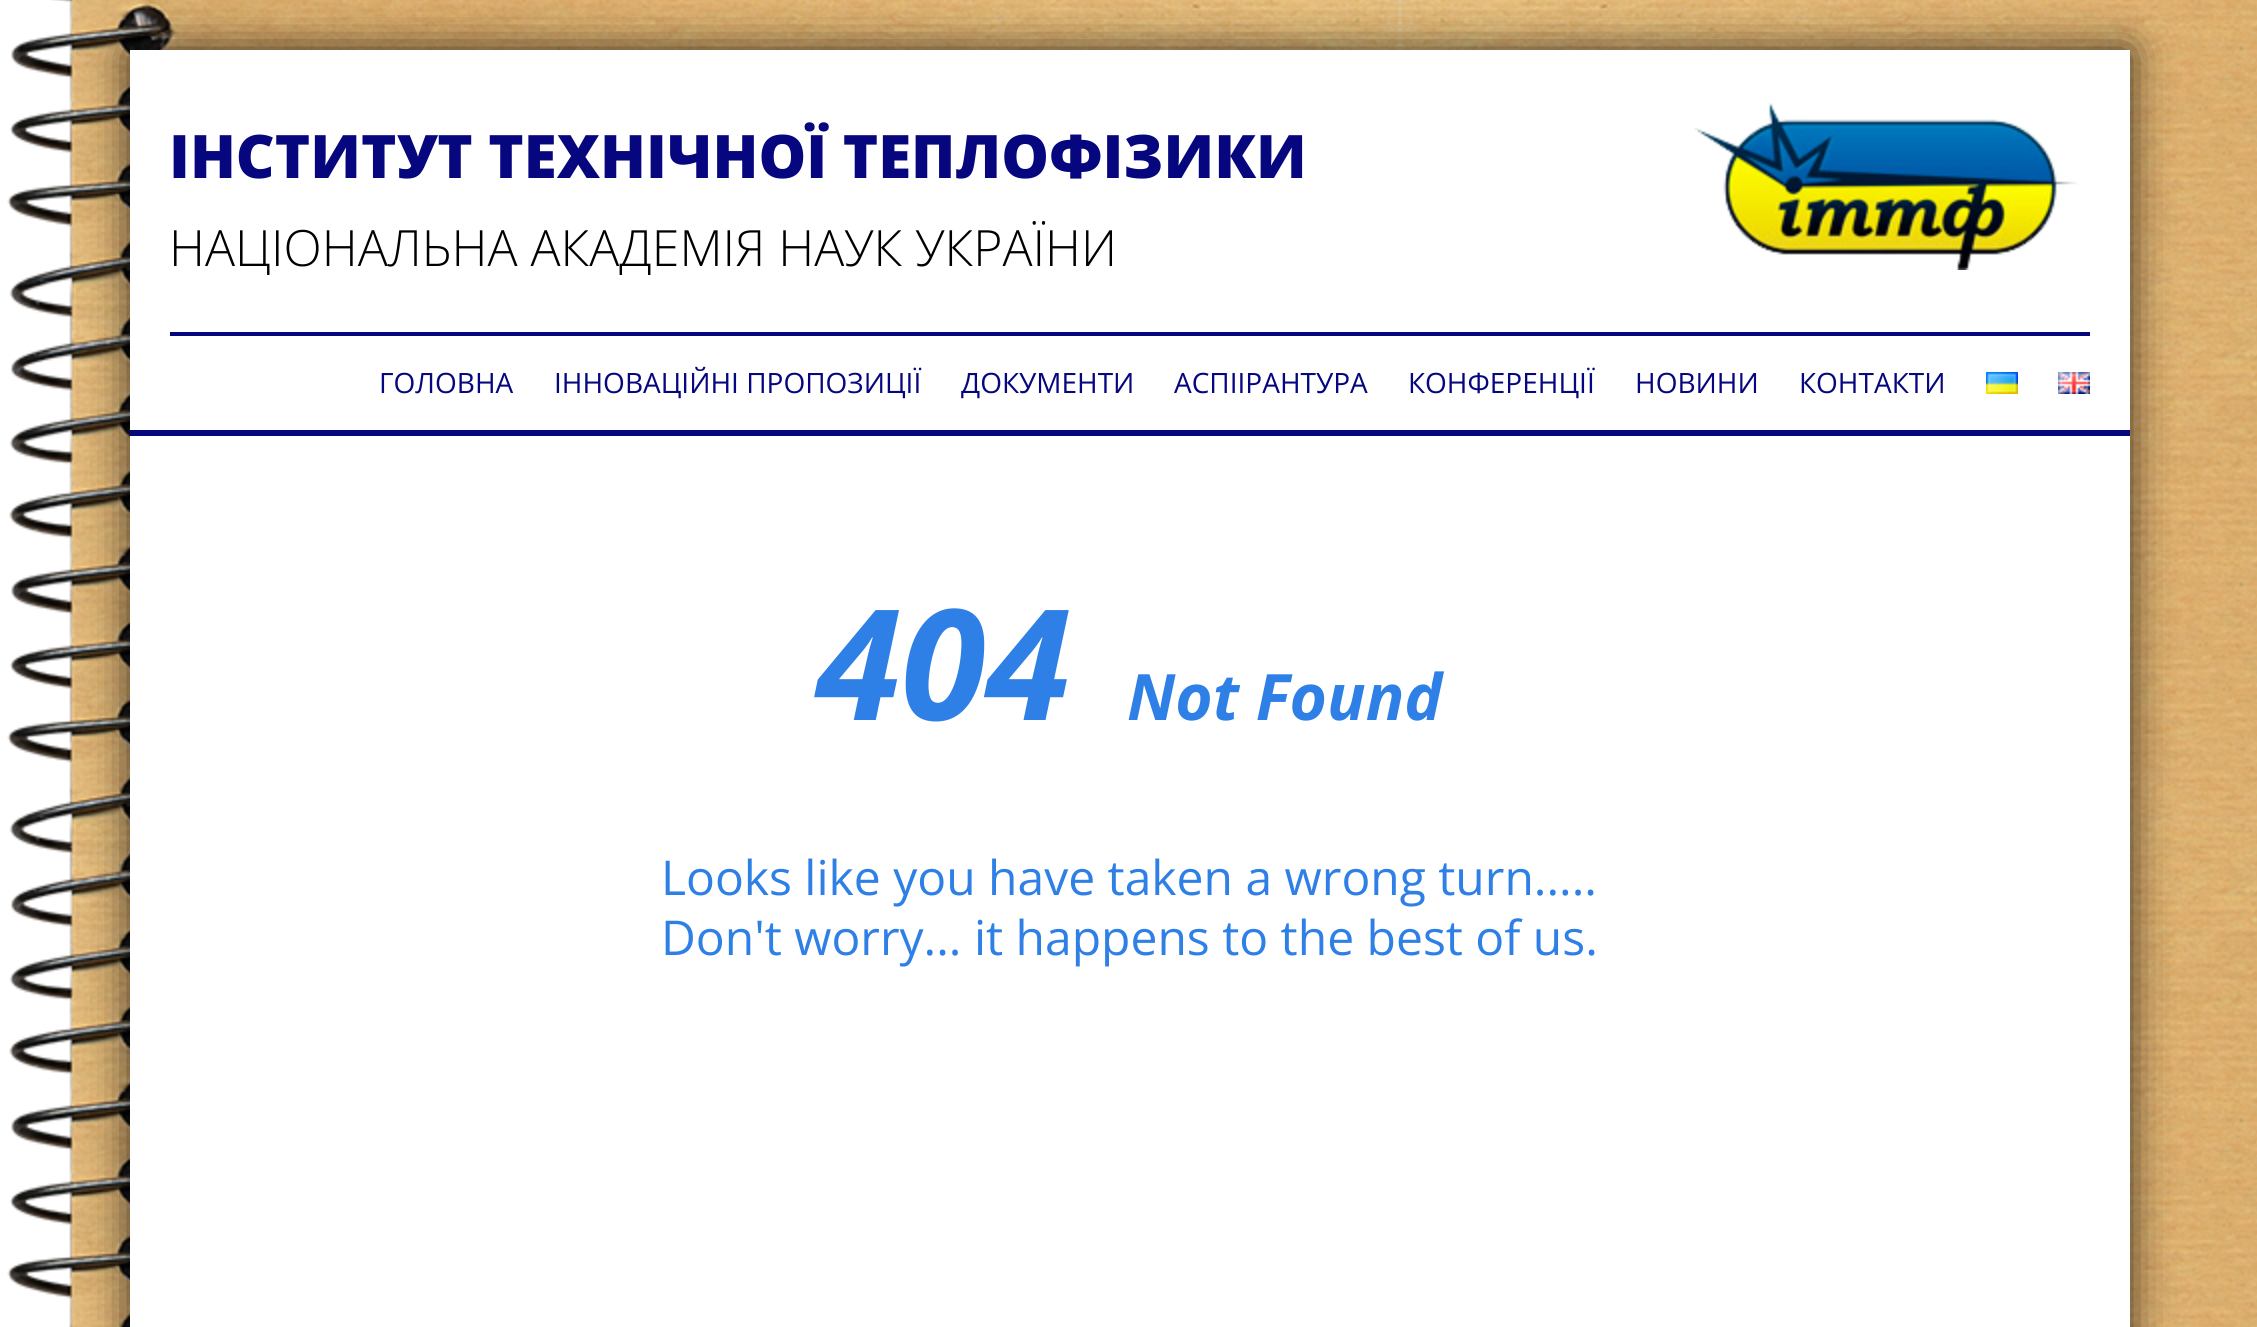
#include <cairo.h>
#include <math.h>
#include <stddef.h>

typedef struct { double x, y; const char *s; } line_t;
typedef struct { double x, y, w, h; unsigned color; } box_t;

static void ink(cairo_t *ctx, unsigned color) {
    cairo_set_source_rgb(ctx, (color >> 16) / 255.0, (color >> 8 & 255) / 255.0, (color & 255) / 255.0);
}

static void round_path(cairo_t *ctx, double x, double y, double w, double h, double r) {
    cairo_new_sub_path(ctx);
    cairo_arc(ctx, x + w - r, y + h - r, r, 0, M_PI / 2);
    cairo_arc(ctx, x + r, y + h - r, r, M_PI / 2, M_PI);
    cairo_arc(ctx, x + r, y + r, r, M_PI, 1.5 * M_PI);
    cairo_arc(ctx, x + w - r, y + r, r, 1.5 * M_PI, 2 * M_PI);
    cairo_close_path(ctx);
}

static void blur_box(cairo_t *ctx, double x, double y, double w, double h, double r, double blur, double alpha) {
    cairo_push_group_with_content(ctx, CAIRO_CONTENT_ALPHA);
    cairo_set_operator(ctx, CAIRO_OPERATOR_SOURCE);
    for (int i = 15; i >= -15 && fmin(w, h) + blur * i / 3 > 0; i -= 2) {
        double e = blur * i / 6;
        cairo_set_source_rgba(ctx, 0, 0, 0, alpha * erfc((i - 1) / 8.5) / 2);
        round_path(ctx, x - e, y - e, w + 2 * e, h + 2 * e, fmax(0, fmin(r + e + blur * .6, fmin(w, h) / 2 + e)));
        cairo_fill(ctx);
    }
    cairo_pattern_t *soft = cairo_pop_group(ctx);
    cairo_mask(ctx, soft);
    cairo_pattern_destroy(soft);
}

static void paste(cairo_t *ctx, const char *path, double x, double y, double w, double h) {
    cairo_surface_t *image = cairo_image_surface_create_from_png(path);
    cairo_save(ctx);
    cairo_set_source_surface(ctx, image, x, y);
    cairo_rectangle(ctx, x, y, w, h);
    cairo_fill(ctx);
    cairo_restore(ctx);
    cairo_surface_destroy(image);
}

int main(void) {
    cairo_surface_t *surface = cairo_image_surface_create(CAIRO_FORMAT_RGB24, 2257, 1327);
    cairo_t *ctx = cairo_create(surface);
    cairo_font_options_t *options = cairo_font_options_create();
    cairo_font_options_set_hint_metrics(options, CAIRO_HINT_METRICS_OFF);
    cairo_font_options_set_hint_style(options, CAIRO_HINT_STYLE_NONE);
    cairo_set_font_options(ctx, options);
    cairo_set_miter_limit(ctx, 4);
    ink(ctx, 0xFFFFFF);
    cairo_paint(ctx);
    paste(ctx, "media/1.png", 7, 0, 2250, 1327);
    ink(ctx, 0x000000);
    blur_box(ctx, 130, 50, 2000, 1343, 0, 22, 0.75);
    {
        static const box_t items[] = {
            {130, 50, 2000, 1277, 0xFFFFFF},
            {130, 430, 2000, 6, 0x06067F},
            {170, 332, 1920, 4, 0x06067F},
        };
        for (size_t i = 0; i < sizeof items / sizeof *items; i++) {
            ink(ctx, items[i].color);
            cairo_rectangle(ctx, items[i].x, items[i].y, items[i].w, items[i].h);
            cairo_fill(ctx);
        }
    }
    cairo_select_font_face(ctx, "Open Sans ExtraBold", CAIRO_FONT_SLANT_NORMAL, CAIRO_FONT_WEIGHT_NORMAL);
    cairo_set_font_size(ctx, 60);
    cairo_move_to(ctx, 169, 178);
    cairo_show_text(ctx, "ІНСТИТУТ ТЕХНІЧНОЇ ТЕПЛОФІЗИКИ");
    paste(ctx, "media/2.png", 1694, 103, 384, 167);
    cairo_select_font_face(ctx, "Open Sans Light", CAIRO_FONT_SLANT_NORMAL, CAIRO_FONT_WEIGHT_NORMAL);
    cairo_set_font_size(ctx, 50);
    ink(ctx, 0x000000);
    cairo_move_to(ctx, 169, 266);
    cairo_show_text(ctx, "НАЦІОНАЛЬНА АКАДЕМІЯ НАУК УКРАЇНИ");
    cairo_select_font_face(ctx, "Open Sans", CAIRO_FONT_SLANT_NORMAL, CAIRO_FONT_WEIGHT_NORMAL);
    cairo_set_font_size(ctx, 28);
    ink(ctx, 0x06067F);
    {
        static const line_t items[] = {
            {379, 393, "ГОЛОВНА"},
            {554, 393, "ІННОВАЦІЙНІ ПРОПОЗИЦІЇ"},
            {961, 393, "ДОКУМЕНТИ"},
            {1174, 393, "АСПІІРАНТУРА"},
            {1408, 393, "КОНФЕРЕНЦІЇ"},
            {1635, 393, "НОВИНИ"},
            {1799, 393, "КОНТАКТИ"},
        };
        for (size_t i = 0; i < sizeof items / sizeof *items; i++) {
            cairo_move_to(ctx, items[i].x, items[i].y);
            cairo_show_text(ctx, items[i].s);
        }
    }
    paste(ctx, "media/3.png", 1986, 372, 32, 22);
    paste(ctx, "media/4.png", 2058, 372, 32, 22);
    cairo_select_font_face(ctx, "Open Sans", CAIRO_FONT_SLANT_ITALIC, CAIRO_FONT_WEIGHT_BOLD);
    cairo_set_font_size(ctx, 154);
    ink(ctx, 0x2E7FE6);
    cairo_move_to(ctx, 816, 720);
    cairo_show_text(ctx, "404");
    cairo_set_font_size(ctx, 64);
    cairo_move_to(ctx, 1127, 720);
    cairo_show_text(ctx, "Not Found");
    cairo_select_font_face(ctx, "Open Sans", CAIRO_FONT_SLANT_NORMAL, CAIRO_FONT_WEIGHT_NORMAL);
    cairo_set_font_size(ctx, 48);
    cairo_move_to(ctx, 661, 895);
    cairo_show_text(ctx, "Looks like you have taken a wrong turn.....");
    cairo_move_to(ctx, 661, 955);
    cairo_show_text(ctx, "Don't worry... it happens to the best of us.");
    cairo_surface_write_to_png(surface, "image.png");
    cairo_font_options_destroy(options);
    cairo_destroy(ctx);
    cairo_surface_destroy(surface);
    return 0;
}
